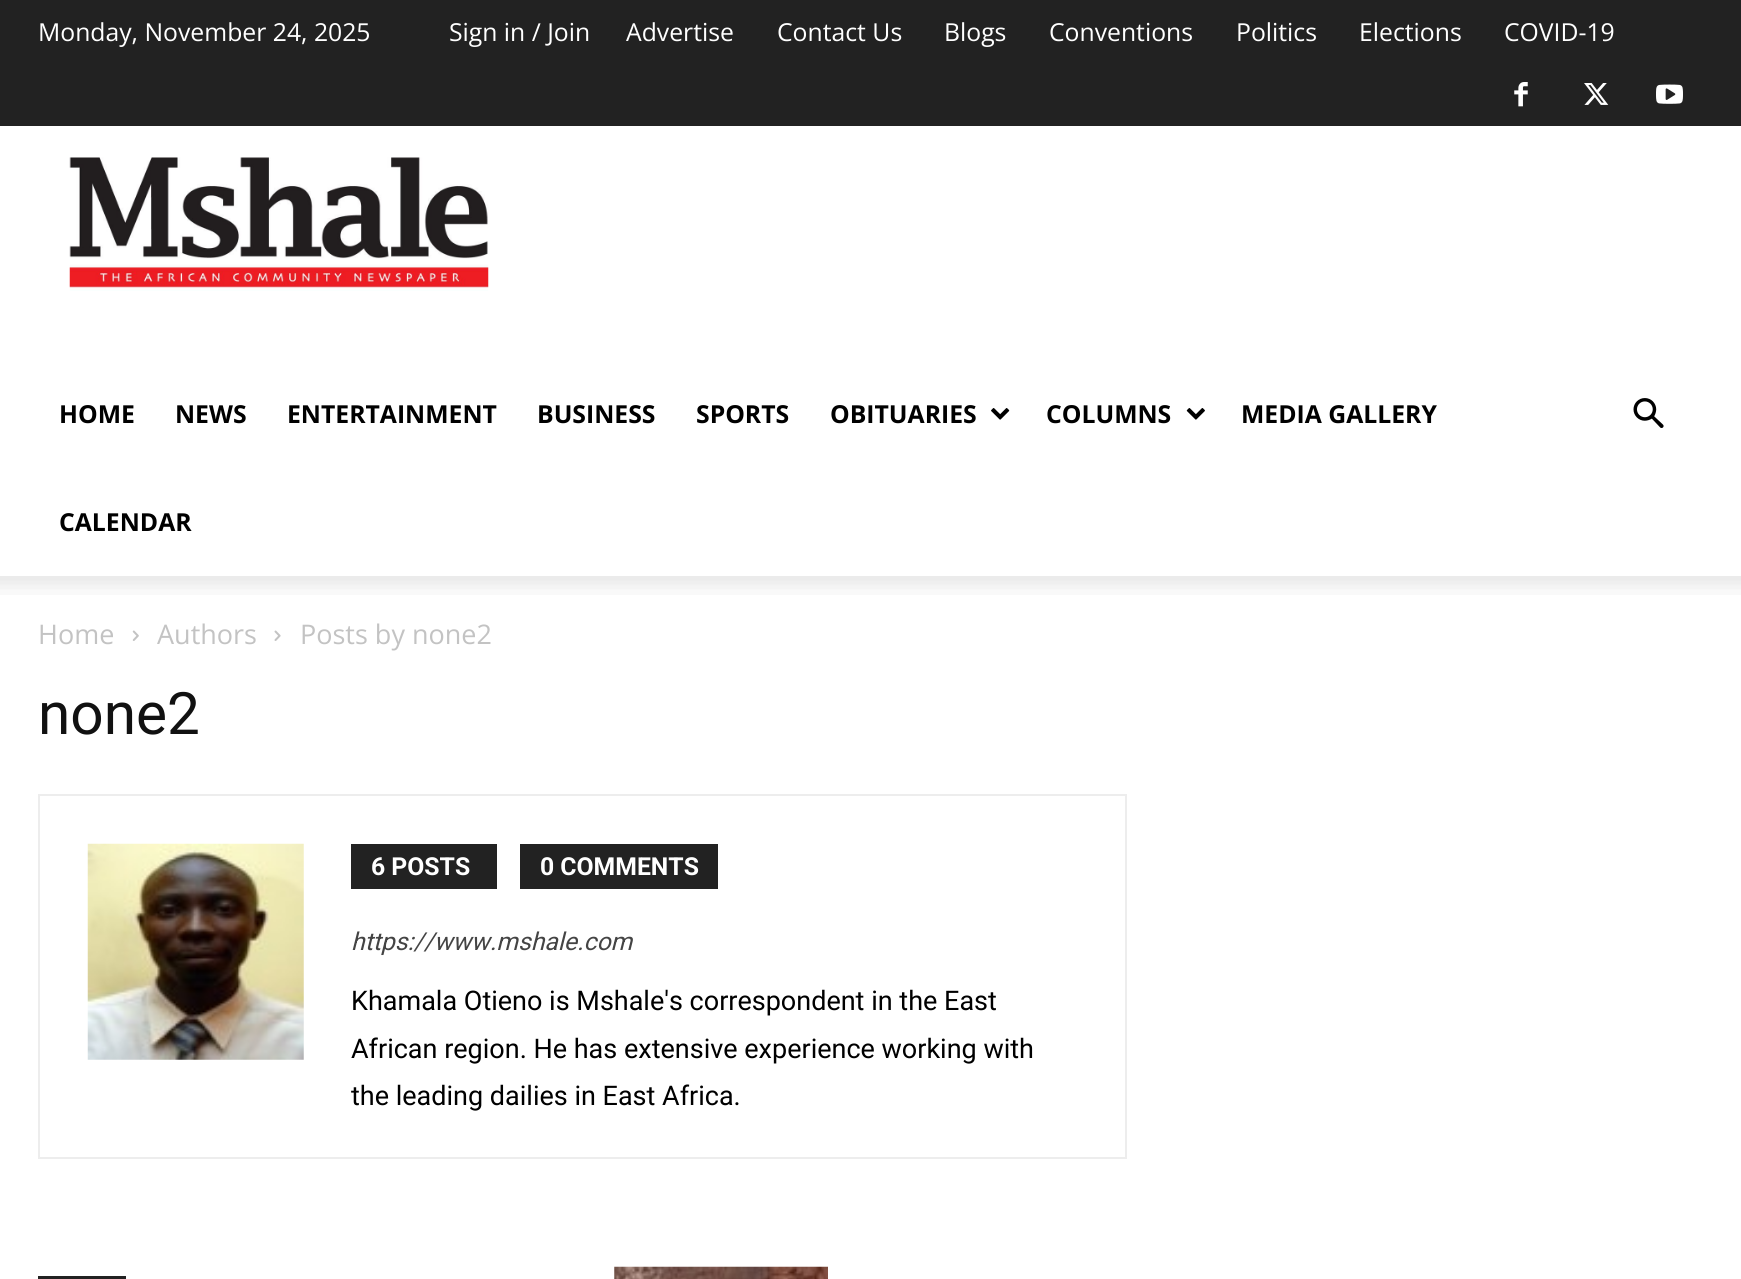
#include <cairo.h>
#include <math.h>
#include <stddef.h>

typedef struct { double x, y; const char *s; } line_t;

static void ink(cairo_t *ctx, unsigned color) {
    cairo_set_source_rgb(ctx, (color >> 16) / 255.0, (color >> 8 & 255) / 255.0, (color & 255) / 255.0);
}

static void paste(cairo_t *ctx, const char *path, double x, double y, double w, double h) {
    cairo_surface_t *image = cairo_image_surface_create_from_png(path);
    cairo_save(ctx);
    cairo_set_source_surface(ctx, image, x, y);
    cairo_rectangle(ctx, x, y, w, h);
    cairo_fill(ctx);
    cairo_restore(ctx);
    cairo_surface_destroy(image);
}

int main(void) {
    cairo_surface_t *surface = cairo_image_surface_create(CAIRO_FORMAT_RGB24, 1741, 1279);
    cairo_t *ctx = cairo_create(surface);
    cairo_font_options_t *options = cairo_font_options_create();
    cairo_font_options_set_hint_metrics(options, CAIRO_HINT_METRICS_OFF);
    cairo_font_options_set_hint_style(options, CAIRO_HINT_STYLE_NONE);
    cairo_set_font_options(ctx, options);
    cairo_set_miter_limit(ctx, 4);
    ink(ctx, 0xFFFFFF);
    cairo_paint(ctx);
    ink(ctx, 0x222222);
    cairo_rectangle(ctx, 0, 0, 1741, 126);
    cairo_fill(ctx);
    cairo_select_font_face(ctx, "Open Sans", CAIRO_FONT_SLANT_NORMAL, CAIRO_FONT_WEIGHT_NORMAL);
    cairo_set_font_size(ctx, 24.75);
    ink(ctx, 0xFFFFFF);
    {
        static const line_t items[] = {
            {38, 41, "Monday, November 24, 2025"},
            {449, 41, "Sign in / Join"},
            {626, 41, "Advertise"},
            {777, 41, "Contact Us"},
            {944, 41, "Blogs"},
            {1049, 41, "Conventions"},
            {1236, 41, "Politics"},
            {1359, 41, "Elections"},
            {1504, 41, "COVID-19"},
        };
        for (size_t i = 0; i < sizeof items / sizeof *items; i++) {
            cairo_move_to(ctx, items[i].x, items[i].y);
            cairo_show_text(ctx, items[i].s);
        }
    }
    paste(ctx, "media/1.png", 1514, 82, 14, 25);
    paste(ctx, "media/2.png", 1584, 83, 25, 22);
    paste(ctx, "media/3.png", 1656, 84, 27, 20);
    paste(ctx, "media/4.png", 69, 157, 420, 134);
    cairo_select_font_face(ctx, "Open Sans", CAIRO_FONT_SLANT_NORMAL, CAIRO_FONT_WEIGHT_BOLD);
    ink(ctx, 0x000000);
    {
        static const line_t items[] = {
            {59, 423, "HOME"},
            {175, 423, "NEWS"},
            {287, 423, "ENTERTAINMENT"},
            {537, 423, "BUSINESS"},
            {696, 423, "SPORTS"},
            {830, 423, "OBITUARIES"},
        };
        for (size_t i = 0; i < sizeof items / sizeof *items; i++) {
            cairo_move_to(ctx, items[i].x, items[i].y);
            cairo_show_text(ctx, items[i].s);
        }
    }
    paste(ctx, "media/5.png", 991, 408, 19, 12);
    cairo_move_to(ctx, 1046, 423);
    cairo_show_text(ctx, "COLUMNS");
    paste(ctx, "media/6.png", 1186, 408, 19, 12);
    cairo_move_to(ctx, 1241, 423);
    cairo_show_text(ctx, "MEDIA GALLERY");
    cairo_move_to(ctx, 59, 531);
    cairo_show_text(ctx, "CALENDAR");
    paste(ctx, "media/7.png", 1633, 398, 31, 30);
    paste(ctx, "media/8.png", 0, 576, 1741, 19);
    cairo_select_font_face(ctx, "Open Sans", CAIRO_FONT_SLANT_NORMAL, CAIRO_FONT_WEIGHT_NORMAL);
    cairo_set_font_size(ctx, 27);
    ink(ctx, 0xC3C3C3);
    cairo_move_to(ctx, 38, 644);
    cairo_show_text(ctx, "Home");
    paste(ctx, "media/9.png", 132, 630, 7, 11);
    cairo_move_to(ctx, 157, 644);
    cairo_show_text(ctx, "Authors");
    paste(ctx, "media/10.png", 274, 630, 7, 11);
    cairo_move_to(ctx, 300, 644);
    cairo_show_text(ctx, "Posts by none2");
    cairo_select_font_face(ctx, "Roboto", CAIRO_FONT_SLANT_NORMAL, CAIRO_FONT_WEIGHT_NORMAL);
    cairo_set_font_size(ctx, 58.5);
    ink(ctx, 0x111111);
    cairo_move_to(ctx, 38, 734);
    cairo_show_text(ctx, "none2");
    cairo_rectangle(ctx, 39, 795, 1087, 363);
    ink(ctx, 0xEDEDED);
    cairo_stroke(ctx);
    paste(ctx, "media/11.png", 87, 843, 217, 217);
    ink(ctx, 0x222222);
    cairo_rectangle(ctx, 351, 844, 146, 45);
    cairo_fill(ctx);
    cairo_select_font_face(ctx, "Roboto", CAIRO_FONT_SLANT_NORMAL, CAIRO_FONT_WEIGHT_BOLD);
    cairo_set_font_size(ctx, 24.75);
    ink(ctx, 0xFFFFFF);
    cairo_move_to(ctx, 371, 875);
    cairo_show_text(ctx, "6 POSTS");
    ink(ctx, 0x222222);
    cairo_rectangle(ctx, 520, 844, 198, 45);
    cairo_fill(ctx);
    ink(ctx, 0xFFFFFF);
    cairo_move_to(ctx, 540, 875);
    cairo_show_text(ctx, "0 COMMENTS");
    cairo_select_font_face(ctx, "Roboto", CAIRO_FONT_SLANT_ITALIC, CAIRO_FONT_WEIGHT_NORMAL);
    ink(ctx, 0x444444);
    cairo_move_to(ctx, 351, 950);
    cairo_show_text(ctx, "https://www.mshale.com");
    cairo_select_font_face(ctx, "Roboto", CAIRO_FONT_SLANT_NORMAL, CAIRO_FONT_WEIGHT_NORMAL);
    cairo_set_font_size(ctx, 27);
    ink(ctx, 0x000000);
    {
        static const line_t items[] = {
            {351, 1010, "Khamala Otieno is Mshale's correspondent in the East"},
            {351, 1058, "African region. He has extensive experience working with"},
            {351, 1105, "the leading dailies in East Africa."},
        };
        for (size_t i = 0; i < sizeof items / sizeof *items; i++) {
            cairo_move_to(ctx, items[i].x, items[i].y);
            cairo_show_text(ctx, items[i].s);
        }
    }
    ink(ctx, 0x222222);
    cairo_rectangle(ctx, 38, 1276, 88, 3);
    cairo_fill(ctx);
    paste(ctx, "media/12.png", 614, 1266, 214, 13);
    cairo_surface_write_to_png(surface, "image.png");
    cairo_font_options_destroy(options);
    cairo_destroy(ctx);
    cairo_surface_destroy(surface);
    return 0;
}
